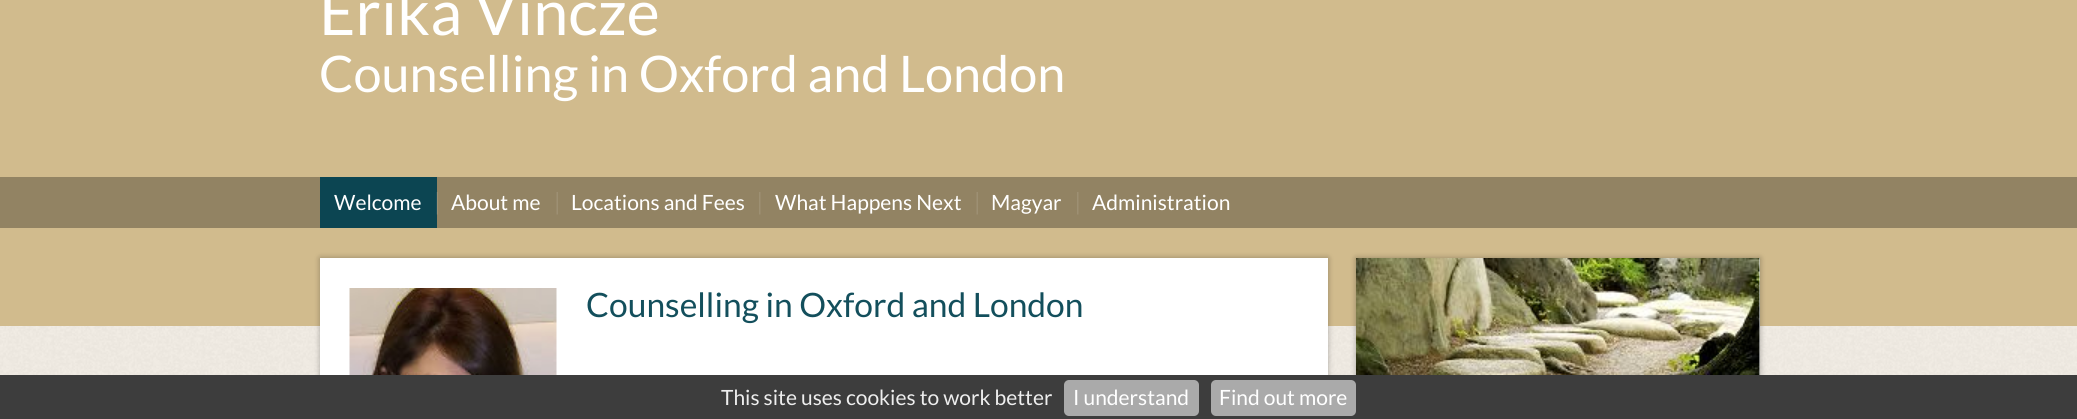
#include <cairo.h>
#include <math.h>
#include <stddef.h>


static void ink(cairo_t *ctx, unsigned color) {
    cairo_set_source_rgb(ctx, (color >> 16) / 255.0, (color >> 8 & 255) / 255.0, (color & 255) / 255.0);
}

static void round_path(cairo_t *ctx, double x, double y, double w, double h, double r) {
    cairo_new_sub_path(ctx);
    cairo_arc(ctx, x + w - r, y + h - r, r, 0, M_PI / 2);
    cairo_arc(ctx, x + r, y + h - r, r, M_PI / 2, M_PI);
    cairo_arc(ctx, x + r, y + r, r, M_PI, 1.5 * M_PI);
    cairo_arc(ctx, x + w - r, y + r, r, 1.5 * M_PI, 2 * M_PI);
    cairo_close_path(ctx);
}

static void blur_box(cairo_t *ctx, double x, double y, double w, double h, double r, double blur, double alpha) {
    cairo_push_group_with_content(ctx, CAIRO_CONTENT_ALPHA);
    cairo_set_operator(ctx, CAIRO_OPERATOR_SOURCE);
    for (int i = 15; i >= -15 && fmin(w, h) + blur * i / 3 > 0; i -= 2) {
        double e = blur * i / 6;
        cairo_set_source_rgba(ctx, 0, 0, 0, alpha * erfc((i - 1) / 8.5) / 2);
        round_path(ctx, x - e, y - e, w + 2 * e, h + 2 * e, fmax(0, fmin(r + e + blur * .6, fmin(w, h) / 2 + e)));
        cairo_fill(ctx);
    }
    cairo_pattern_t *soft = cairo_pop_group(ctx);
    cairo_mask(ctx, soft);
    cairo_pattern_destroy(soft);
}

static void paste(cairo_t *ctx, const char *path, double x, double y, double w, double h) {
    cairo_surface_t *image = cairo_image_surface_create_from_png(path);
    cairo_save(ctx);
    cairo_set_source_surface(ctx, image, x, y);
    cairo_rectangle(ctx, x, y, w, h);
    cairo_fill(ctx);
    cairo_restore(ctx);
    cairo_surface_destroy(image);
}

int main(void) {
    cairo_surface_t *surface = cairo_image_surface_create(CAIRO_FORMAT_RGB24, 2077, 419);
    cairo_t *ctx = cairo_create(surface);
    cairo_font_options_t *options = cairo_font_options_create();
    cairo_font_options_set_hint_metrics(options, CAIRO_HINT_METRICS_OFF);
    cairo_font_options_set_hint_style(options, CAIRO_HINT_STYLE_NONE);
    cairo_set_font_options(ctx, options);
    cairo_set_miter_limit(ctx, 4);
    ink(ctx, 0xF2EDE4);
    cairo_paint(ctx);
    ink(ctx, 0xD1BB8D);
    cairo_rectangle(ctx, 0, 0, 2077, 326);
    cairo_fill(ctx);
    cairo_select_font_face(ctx, "Lato", CAIRO_FONT_SLANT_NORMAL, CAIRO_FONT_WEIGHT_NORMAL);
    cairo_set_font_size(ctx, 63);
    ink(ctx, 0xFFFFFF);
    cairo_move_to(ctx, 319, 35);
    cairo_show_text(ctx, "Erika Vincze");
    cairo_set_font_size(ctx, 50.4);
    cairo_move_to(ctx, 319, 92);
    cairo_show_text(ctx, "Counselling in Oxford and London");
    ink(ctx, 0x928363);
    cairo_rectangle(ctx, 0, 177, 2077, 51);
    cairo_fill(ctx);
    ink(ctx, 0x0C4552);
    cairo_rectangle(ctx, 320, 177, 117, 51);
    cairo_fill(ctx);
    cairo_set_font_size(ctx, 21);
    ink(ctx, 0xFFFFFF);
    cairo_move_to(ctx, 334, 210);
    cairo_show_text(ctx, "Welcome");
    paste(ctx, "media/1.png", 436, 192, 2, 23);
    cairo_move_to(ctx, 451, 210);
    cairo_show_text(ctx, "About me");
    paste(ctx, "media/2.png", 556, 192, 2, 23);
    cairo_move_to(ctx, 571, 210);
    cairo_show_text(ctx, "Locations and Fees");
    paste(ctx, "media/3.png", 759, 192, 2, 23);
    cairo_move_to(ctx, 775, 210);
    cairo_show_text(ctx, "What Happens Next");
    paste(ctx, "media/2.png", 976, 192, 2, 23);
    cairo_move_to(ctx, 991, 210);
    cairo_show_text(ctx, "Magyar");
    paste(ctx, "media/3.png", 1077, 192, 2, 23);
    cairo_move_to(ctx, 1092, 210);
    cairo_show_text(ctx, "Administration");
    paste(ctx, "media/6.png", 0, 326, 2077, 49);
    ink(ctx, 0x000000);
    blur_box(ctx, 320, 258, 1008, 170, 0, 3, 0.3);
    ink(ctx, 0xFFFFFF);
    cairo_rectangle(ctx, 320, 258, 1008, 117);
    cairo_fill(ctx);
    paste(ctx, "media/4.png", 349, 288, 208, 87);
    cairo_set_font_size(ctx, 33.6);
    ink(ctx, 0x134F5C);
    cairo_move_to(ctx, 586, 317);
    cairo_show_text(ctx, "Counselling in Oxford and London");
    ink(ctx, 0x000000);
    blur_box(ctx, 1356, 258, 404, 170, 0, 3, 0.3);
    ink(ctx, 0xFFFFFF);
    cairo_rectangle(ctx, 1759, 258, 1, 117);
    cairo_fill(ctx);
    paste(ctx, "media/5.png", 1356, 258, 404, 117);
    ink(ctx, 0x3D3D3D);
    cairo_rectangle(ctx, 0, 375, 2077, 44);
    cairo_fill(ctx);
    cairo_set_font_size(ctx, 21);
    ink(ctx, 0xEEEEEE);
    cairo_move_to(ctx, 721, 405);
    cairo_show_text(ctx, "This site uses cookies to work better");
    ink(ctx, 0xAAAAAA);
    round_path(ctx, 1064, 380, 135, 36, 5);
    cairo_fill(ctx);
    ink(ctx, 0xFFFFFF);
    cairo_move_to(ctx, 1073, 405);
    cairo_show_text(ctx, "I understand");
    ink(ctx, 0xAAAAAA);
    round_path(ctx, 1211, 380, 145, 36, 5);
    cairo_fill(ctx);
    ink(ctx, 0xFFFFFF);
    cairo_move_to(ctx, 1219, 405);
    cairo_show_text(ctx, "Find out more");
    cairo_surface_write_to_png(surface, "image.png");
    cairo_font_options_destroy(options);
    cairo_destroy(ctx);
    cairo_surface_destroy(surface);
    return 0;
}
